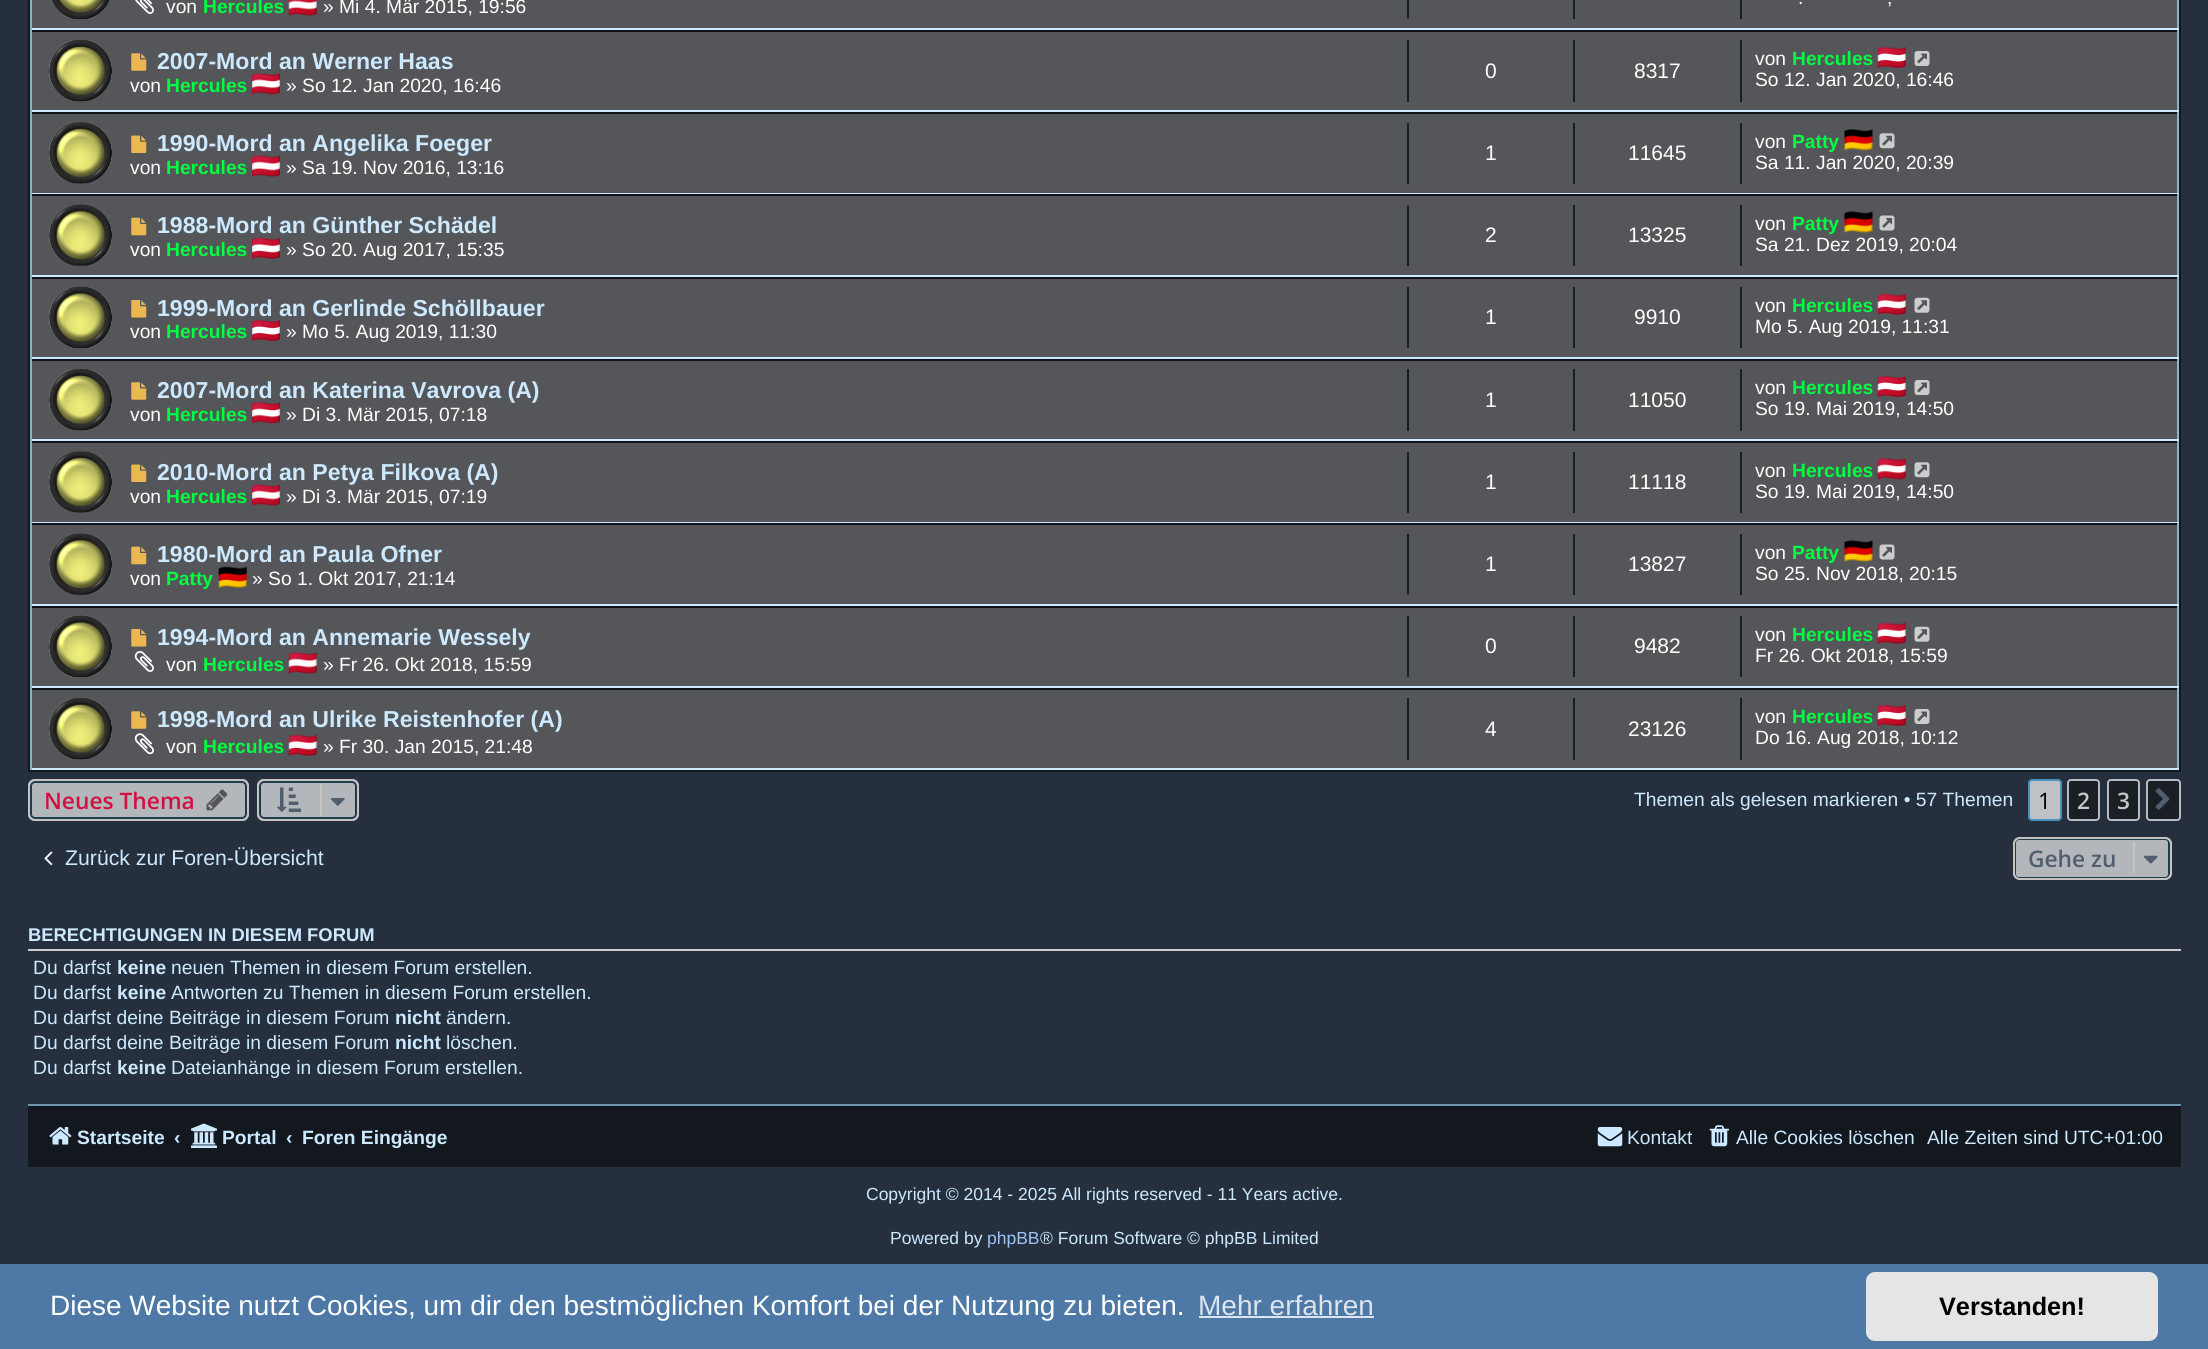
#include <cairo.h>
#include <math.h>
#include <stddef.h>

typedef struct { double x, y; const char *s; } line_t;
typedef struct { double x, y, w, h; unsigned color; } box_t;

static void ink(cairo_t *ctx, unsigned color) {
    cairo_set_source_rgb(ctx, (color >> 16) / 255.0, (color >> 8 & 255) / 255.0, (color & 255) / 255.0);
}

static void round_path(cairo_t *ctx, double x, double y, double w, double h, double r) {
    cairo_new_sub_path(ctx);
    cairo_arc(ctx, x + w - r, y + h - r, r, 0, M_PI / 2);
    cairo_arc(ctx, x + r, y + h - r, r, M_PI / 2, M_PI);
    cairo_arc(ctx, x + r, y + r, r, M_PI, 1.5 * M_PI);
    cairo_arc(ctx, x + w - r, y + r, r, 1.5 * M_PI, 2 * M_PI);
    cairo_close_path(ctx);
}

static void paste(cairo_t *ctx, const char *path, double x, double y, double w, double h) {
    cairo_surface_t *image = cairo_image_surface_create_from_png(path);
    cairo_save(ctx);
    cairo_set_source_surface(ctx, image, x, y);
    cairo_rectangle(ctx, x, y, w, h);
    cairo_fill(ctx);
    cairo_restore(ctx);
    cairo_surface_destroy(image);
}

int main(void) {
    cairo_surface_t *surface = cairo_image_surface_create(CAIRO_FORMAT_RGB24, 2208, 1349);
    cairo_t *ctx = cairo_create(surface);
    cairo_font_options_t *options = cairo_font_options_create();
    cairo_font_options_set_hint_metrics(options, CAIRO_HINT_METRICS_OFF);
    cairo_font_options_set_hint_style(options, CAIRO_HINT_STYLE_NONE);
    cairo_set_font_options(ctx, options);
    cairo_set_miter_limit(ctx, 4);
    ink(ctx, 0x252F3D);
    cairo_paint(ctx);
    {
        static const box_t items[] = {
            {28, 0, 2153, 772, 0x12181F},
            {32, 525, 2145, 79, 0x545659},
            {32, 196, 2145, 79, 0x545659},
            {32, 0, 2145, 28, 0x545659},
            {2177, 0, 2, 30, 0x88B4D4},
            {30, 28, 2149, 2, 0xCCE9FF},
            {30, 0, 2, 30, 0x88B4D4},
        };
        for (size_t i = 0; i < sizeof items / sizeof *items; i++) {
            ink(ctx, items[i].color);
            cairo_rectangle(ctx, items[i].x, items[i].y, items[i].w, items[i].h);
            cairo_fill(ctx);
        }
    }
    paste(ctx, "media/1.png", 51, 0, 59, 19);
    paste(ctx, "media/2.png", 135, 0, 19, 14);
    cairo_select_font_face(ctx, "Liberation Sans", CAIRO_FONT_SLANT_NORMAL, CAIRO_FONT_WEIGHT_NORMAL);
    cairo_set_font_size(ctx, 19.25);
    ink(ctx, 0xFFFFFF);
    cairo_move_to(ctx, 166, 13);
    cairo_show_text(ctx, "von");
    cairo_select_font_face(ctx, "Liberation Sans", CAIRO_FONT_SLANT_NORMAL, CAIRO_FONT_WEIGHT_BOLD);
    ink(ctx, 0x00FF40);
    cairo_move_to(ctx, 203, 13);
    cairo_show_text(ctx, "Hercules");
    paste(ctx, "media/3.png", 288, 0, 29, 16);
    cairo_select_font_face(ctx, "Liberation Sans", CAIRO_FONT_SLANT_NORMAL, CAIRO_FONT_WEIGHT_NORMAL);
    ink(ctx, 0xFFFFFF);
    cairo_move_to(ctx, 323, 13);
    cairo_show_text(ctx, "» Mi 4. Mär 2015, 19:56");
    {
        static const box_t items[] = {
            {1407, 0, 2, 19, 0x151F2A},
            {1573, 0, 2, 19, 0x151F2A},
            {1740, 0, 2, 19, 0x151F2A},
        };
        for (size_t i = 0; i < sizeof items / sizeof *items; i++) {
            ink(ctx, items[i].color);
            cairo_rectangle(ctx, items[i].x, items[i].y, items[i].w, items[i].h);
            cairo_fill(ctx);
        }
    }
    ink(ctx, 0xFFFFFF);
    cairo_move_to(ctx, 1798, 4);
    cairo_show_text(ctx, ".");
    cairo_move_to(ctx, 1887, 4);
    cairo_show_text(ctx, ",");
    {
        static const box_t items[] = {
            {32, 32, 2145, 78, 0x545659},
            {30, 30, 2149, 2, 0x0F141B},
            {2177, 30, 2, 82, 0x88B4D4},
            {30, 110, 2149, 2, 0xCCE9FF},
            {30, 30, 2, 82, 0x88B4D4},
        };
        for (size_t i = 0; i < sizeof items / sizeof *items; i++) {
            ink(ctx, items[i].color);
            cairo_rectangle(ctx, items[i].x, items[i].y, items[i].w, items[i].h);
            cairo_fill(ctx);
        }
    }
    paste(ctx, "media/4.png", 49, 40, 63, 62);
    paste(ctx, "media/5.png", 131, 53, 16, 18);
    cairo_select_font_face(ctx, "Liberation Sans", CAIRO_FONT_SLANT_NORMAL, CAIRO_FONT_WEIGHT_BOLD);
    cairo_set_font_size(ctx, 23.1);
    ink(ctx, 0xCCE9FF);
    cairo_move_to(ctx, 157, 69);
    cairo_show_text(ctx, "2007-Mord an Werner Haas");
    cairo_select_font_face(ctx, "Liberation Sans", CAIRO_FONT_SLANT_NORMAL, CAIRO_FONT_WEIGHT_NORMAL);
    cairo_set_font_size(ctx, 19.25);
    ink(ctx, 0xFFFFFF);
    cairo_move_to(ctx, 130, 92);
    cairo_show_text(ctx, "von");
    cairo_select_font_face(ctx, "Liberation Sans", CAIRO_FONT_SLANT_NORMAL, CAIRO_FONT_WEIGHT_BOLD);
    ink(ctx, 0x00FF40);
    cairo_move_to(ctx, 166, 92);
    cairo_show_text(ctx, "Hercules");
    paste(ctx, "media/6.png", 252, 73, 28, 22);
    cairo_select_font_face(ctx, "Liberation Sans", CAIRO_FONT_SLANT_NORMAL, CAIRO_FONT_WEIGHT_NORMAL);
    ink(ctx, 0xFFFFFF);
    cairo_move_to(ctx, 286, 92);
    cairo_show_text(ctx, "» So 12. Jan 2020, 16:46");
    ink(ctx, 0x151F2A);
    cairo_rectangle(ctx, 1407, 40, 2, 62);
    cairo_fill(ctx);
    cairo_set_font_size(ctx, 21);
    ink(ctx, 0xFFFFFF);
    cairo_move_to(ctx, 1485, 78);
    cairo_show_text(ctx, "0");
    ink(ctx, 0x151F2A);
    cairo_rectangle(ctx, 1573, 40, 2, 62);
    cairo_fill(ctx);
    ink(ctx, 0xFFFFFF);
    cairo_move_to(ctx, 1634, 78);
    cairo_show_text(ctx, "8317");
    ink(ctx, 0x151F2A);
    cairo_rectangle(ctx, 1740, 40, 2, 62);
    cairo_fill(ctx);
    cairo_set_font_size(ctx, 19.25);
    ink(ctx, 0xFFFFFF);
    cairo_move_to(ctx, 1755, 65);
    cairo_show_text(ctx, "von");
    cairo_select_font_face(ctx, "Liberation Sans", CAIRO_FONT_SLANT_NORMAL, CAIRO_FONT_WEIGHT_BOLD);
    ink(ctx, 0x00FF40);
    cairo_move_to(ctx, 1792, 65);
    cairo_show_text(ctx, "Hercules");
    paste(ctx, "media/7.png", 1877, 47, 29, 21);
    paste(ctx, "media/8.png", 1914, 51, 16, 15);
    cairo_select_font_face(ctx, "Liberation Sans", CAIRO_FONT_SLANT_NORMAL, CAIRO_FONT_WEIGHT_NORMAL);
    ink(ctx, 0xFFFFFF);
    cairo_move_to(ctx, 1755, 86);
    cairo_show_text(ctx, "So 12. Jan 2020, 16:46");
    {
        static const box_t items[] = {
            {32, 114, 2145, 79, 0x545659},
            {30, 112, 2149, 2, 0x0F141B},
            {2177, 112, 2, 82, 0x88B4D4},
            {30, 193, 2149, 1, 0xCCE9FF},
            {30, 112, 2, 82, 0x88B4D4},
        };
        for (size_t i = 0; i < sizeof items / sizeof *items; i++) {
            ink(ctx, items[i].color);
            cairo_rectangle(ctx, items[i].x, items[i].y, items[i].w, items[i].h);
            cairo_fill(ctx);
        }
    }
    paste(ctx, "media/9.png", 49, 122, 63, 62);
    paste(ctx, "media/10.png", 131, 135, 16, 18);
    paste(ctx, "media/11.png", 252, 155, 28, 22);
    cairo_select_font_face(ctx, "Liberation Sans", CAIRO_FONT_SLANT_NORMAL, CAIRO_FONT_WEIGHT_BOLD);
    cairo_set_font_size(ctx, 23.1);
    ink(ctx, 0xCCE9FF);
    cairo_move_to(ctx, 157, 151);
    cairo_show_text(ctx, "1990-Mord an Angelika Foeger");
    cairo_select_font_face(ctx, "Liberation Sans", CAIRO_FONT_SLANT_NORMAL, CAIRO_FONT_WEIGHT_NORMAL);
    cairo_set_font_size(ctx, 19.25);
    ink(ctx, 0xFFFFFF);
    cairo_move_to(ctx, 130, 174);
    cairo_show_text(ctx, "von");
    cairo_select_font_face(ctx, "Liberation Sans", CAIRO_FONT_SLANT_NORMAL, CAIRO_FONT_WEIGHT_BOLD);
    ink(ctx, 0x00FF40);
    cairo_move_to(ctx, 166, 174);
    cairo_show_text(ctx, "Hercules");
    cairo_select_font_face(ctx, "Liberation Sans", CAIRO_FONT_SLANT_NORMAL, CAIRO_FONT_WEIGHT_NORMAL);
    ink(ctx, 0xFFFFFF);
    cairo_move_to(ctx, 286, 174);
    cairo_show_text(ctx, "» Sa 19. Nov 2016, 13:16");
    ink(ctx, 0x151F2A);
    cairo_rectangle(ctx, 1407, 123, 2, 61);
    cairo_fill(ctx);
    cairo_set_font_size(ctx, 21);
    ink(ctx, 0xFFFFFF);
    cairo_move_to(ctx, 1485, 160);
    cairo_show_text(ctx, "1");
    ink(ctx, 0x151F2A);
    cairo_rectangle(ctx, 1573, 123, 2, 61);
    cairo_fill(ctx);
    ink(ctx, 0xFFFFFF);
    cairo_move_to(ctx, 1628, 160);
    cairo_show_text(ctx, "11645");
    ink(ctx, 0x151F2A);
    cairo_rectangle(ctx, 1740, 123, 2, 61);
    cairo_fill(ctx);
    cairo_set_font_size(ctx, 19.25);
    ink(ctx, 0xFFFFFF);
    cairo_move_to(ctx, 1755, 148);
    cairo_show_text(ctx, "von");
    cairo_select_font_face(ctx, "Liberation Sans", CAIRO_FONT_SLANT_NORMAL, CAIRO_FONT_WEIGHT_BOLD);
    ink(ctx, 0x00FF40);
    cairo_move_to(ctx, 1792, 148);
    cairo_show_text(ctx, "Patty");
    paste(ctx, "media/12.png", 1844, 129, 29, 22);
    paste(ctx, "media/13.png", 1879, 133, 16, 16);
    cairo_select_font_face(ctx, "Liberation Sans", CAIRO_FONT_SLANT_NORMAL, CAIRO_FONT_WEIGHT_NORMAL);
    ink(ctx, 0xFFFFFF);
    cairo_move_to(ctx, 1755, 169);
    cairo_show_text(ctx, "Sa 11. Jan 2020, 20:39");
    {
        static const box_t items[] = {
            {30, 194, 2149, 2, 0x0F141B},
            {2177, 194, 2, 83, 0x88B4D4},
            {30, 275, 2149, 2, 0xCCE9FF},
            {30, 194, 2, 83, 0x88B4D4},
        };
        for (size_t i = 0; i < sizeof items / sizeof *items; i++) {
            ink(ctx, items[i].color);
            cairo_rectangle(ctx, items[i].x, items[i].y, items[i].w, items[i].h);
            cairo_fill(ctx);
        }
    }
    paste(ctx, "media/14.png", 49, 204, 63, 62);
    paste(ctx, "media/15.png", 131, 217, 16, 19);
    cairo_select_font_face(ctx, "Liberation Sans", CAIRO_FONT_SLANT_NORMAL, CAIRO_FONT_WEIGHT_BOLD);
    cairo_set_font_size(ctx, 23.1);
    ink(ctx, 0xCCE9FF);
    cairo_move_to(ctx, 157, 233);
    cairo_show_text(ctx, "1988-Mord an Günther Schädel");
    cairo_select_font_face(ctx, "Liberation Sans", CAIRO_FONT_SLANT_NORMAL, CAIRO_FONT_WEIGHT_NORMAL);
    cairo_set_font_size(ctx, 19.25);
    ink(ctx, 0xFFFFFF);
    cairo_move_to(ctx, 130, 256);
    cairo_show_text(ctx, "von");
    cairo_select_font_face(ctx, "Liberation Sans", CAIRO_FONT_SLANT_NORMAL, CAIRO_FONT_WEIGHT_BOLD);
    ink(ctx, 0x00FF40);
    cairo_move_to(ctx, 166, 256);
    cairo_show_text(ctx, "Hercules");
    paste(ctx, "media/16.png", 252, 237, 28, 22);
    cairo_select_font_face(ctx, "Liberation Sans", CAIRO_FONT_SLANT_NORMAL, CAIRO_FONT_WEIGHT_NORMAL);
    ink(ctx, 0xFFFFFF);
    cairo_move_to(ctx, 286, 256);
    cairo_show_text(ctx, "» So 20. Aug 2017, 15:35");
    ink(ctx, 0x151F2A);
    cairo_rectangle(ctx, 1407, 205, 2, 61);
    cairo_fill(ctx);
    cairo_set_font_size(ctx, 21);
    ink(ctx, 0xFFFFFF);
    cairo_move_to(ctx, 1485, 242);
    cairo_show_text(ctx, "2");
    ink(ctx, 0x151F2A);
    cairo_rectangle(ctx, 1573, 205, 2, 61);
    cairo_fill(ctx);
    ink(ctx, 0xFFFFFF);
    cairo_move_to(ctx, 1628, 242);
    cairo_show_text(ctx, "13325");
    ink(ctx, 0x151F2A);
    cairo_rectangle(ctx, 1740, 205, 2, 61);
    cairo_fill(ctx);
    cairo_set_font_size(ctx, 19.25);
    ink(ctx, 0xFFFFFF);
    cairo_move_to(ctx, 1755, 230);
    cairo_show_text(ctx, "von");
    cairo_select_font_face(ctx, "Liberation Sans", CAIRO_FONT_SLANT_NORMAL, CAIRO_FONT_WEIGHT_BOLD);
    ink(ctx, 0x00FF40);
    cairo_move_to(ctx, 1792, 230);
    cairo_show_text(ctx, "Patty");
    paste(ctx, "media/17.png", 1844, 211, 29, 22);
    paste(ctx, "media/18.png", 1879, 215, 16, 16);
    cairo_select_font_face(ctx, "Liberation Sans", CAIRO_FONT_SLANT_NORMAL, CAIRO_FONT_WEIGHT_NORMAL);
    ink(ctx, 0xFFFFFF);
    cairo_move_to(ctx, 1755, 251);
    cairo_show_text(ctx, "Sa 21. Dez 2019, 20:04");
    {
        static const box_t items[] = {
            {32, 279, 2145, 78, 0x545659},
            {30, 277, 2149, 2, 0x0F141B},
            {2177, 277, 2, 82, 0x88B4D4},
            {30, 357, 2149, 2, 0xCCE9FF},
            {30, 277, 2, 82, 0x88B4D4},
        };
        for (size_t i = 0; i < sizeof items / sizeof *items; i++) {
            ink(ctx, items[i].color);
            cairo_rectangle(ctx, items[i].x, items[i].y, items[i].w, items[i].h);
            cairo_fill(ctx);
        }
    }
    paste(ctx, "media/19.png", 49, 286, 63, 62);
    paste(ctx, "media/20.png", 131, 300, 16, 18);
    cairo_select_font_face(ctx, "Liberation Sans", CAIRO_FONT_SLANT_NORMAL, CAIRO_FONT_WEIGHT_BOLD);
    cairo_set_font_size(ctx, 23.1);
    ink(ctx, 0xCCE9FF);
    cairo_move_to(ctx, 157, 316);
    cairo_show_text(ctx, "1999-Mord an Gerlinde Schöllbauer");
    cairo_select_font_face(ctx, "Liberation Sans", CAIRO_FONT_SLANT_NORMAL, CAIRO_FONT_WEIGHT_NORMAL);
    cairo_set_font_size(ctx, 19.25);
    ink(ctx, 0xFFFFFF);
    cairo_move_to(ctx, 130, 338);
    cairo_show_text(ctx, "von");
    cairo_select_font_face(ctx, "Liberation Sans", CAIRO_FONT_SLANT_NORMAL, CAIRO_FONT_WEIGHT_BOLD);
    ink(ctx, 0x00FF40);
    cairo_move_to(ctx, 166, 338);
    cairo_show_text(ctx, "Hercules");
    paste(ctx, "media/21.png", 252, 320, 28, 21);
    cairo_select_font_face(ctx, "Liberation Sans", CAIRO_FONT_SLANT_NORMAL, CAIRO_FONT_WEIGHT_NORMAL);
    ink(ctx, 0xFFFFFF);
    cairo_move_to(ctx, 286, 338);
    cairo_show_text(ctx, "» Mo 5. Aug 2019, 11:30");
    ink(ctx, 0x151F2A);
    cairo_rectangle(ctx, 1407, 287, 2, 61);
    cairo_fill(ctx);
    cairo_set_font_size(ctx, 21);
    ink(ctx, 0xFFFFFF);
    cairo_move_to(ctx, 1485, 324);
    cairo_show_text(ctx, "1");
    ink(ctx, 0x151F2A);
    cairo_rectangle(ctx, 1573, 287, 2, 61);
    cairo_fill(ctx);
    ink(ctx, 0xFFFFFF);
    cairo_move_to(ctx, 1634, 324);
    cairo_show_text(ctx, "9910");
    ink(ctx, 0x151F2A);
    cairo_rectangle(ctx, 1740, 287, 2, 61);
    cairo_fill(ctx);
    cairo_set_font_size(ctx, 19.25);
    ink(ctx, 0xFFFFFF);
    cairo_move_to(ctx, 1755, 312);
    cairo_show_text(ctx, "von");
    cairo_select_font_face(ctx, "Liberation Sans", CAIRO_FONT_SLANT_NORMAL, CAIRO_FONT_WEIGHT_BOLD);
    ink(ctx, 0x00FF40);
    cairo_move_to(ctx, 1792, 312);
    cairo_show_text(ctx, "Hercules");
    paste(ctx, "media/22.png", 1877, 293, 29, 22);
    paste(ctx, "media/23.png", 1914, 297, 16, 16);
    cairo_select_font_face(ctx, "Liberation Sans", CAIRO_FONT_SLANT_NORMAL, CAIRO_FONT_WEIGHT_NORMAL);
    ink(ctx, 0xFFFFFF);
    cairo_move_to(ctx, 1755, 333);
    cairo_show_text(ctx, "Mo 5. Aug 2019, 11:31");
    {
        static const box_t items[] = {
            {32, 361, 2145, 78, 0x545659},
            {30, 359, 2149, 2, 0x0F141B},
            {2177, 359, 2, 82, 0x88B4D4},
            {30, 439, 2149, 2, 0xCCE9FF},
            {30, 359, 2, 82, 0x88B4D4},
        };
        for (size_t i = 0; i < sizeof items / sizeof *items; i++) {
            ink(ctx, items[i].color);
            cairo_rectangle(ctx, items[i].x, items[i].y, items[i].w, items[i].h);
            cairo_fill(ctx);
        }
    }
    paste(ctx, "media/24.png", 49, 369, 63, 62);
    paste(ctx, "media/5.png", 131, 382, 16, 18);
    paste(ctx, "media/6.png", 252, 402, 28, 22);
    cairo_select_font_face(ctx, "Liberation Sans", CAIRO_FONT_SLANT_NORMAL, CAIRO_FONT_WEIGHT_BOLD);
    cairo_set_font_size(ctx, 23.1);
    ink(ctx, 0xCCE9FF);
    cairo_move_to(ctx, 157, 398);
    cairo_show_text(ctx, "2007-Mord an Katerina Vavrova (A)");
    cairo_select_font_face(ctx, "Liberation Sans", CAIRO_FONT_SLANT_NORMAL, CAIRO_FONT_WEIGHT_NORMAL);
    cairo_set_font_size(ctx, 19.25);
    ink(ctx, 0xFFFFFF);
    cairo_move_to(ctx, 130, 421);
    cairo_show_text(ctx, "von");
    cairo_select_font_face(ctx, "Liberation Sans", CAIRO_FONT_SLANT_NORMAL, CAIRO_FONT_WEIGHT_BOLD);
    ink(ctx, 0x00FF40);
    cairo_move_to(ctx, 166, 421);
    cairo_show_text(ctx, "Hercules");
    cairo_select_font_face(ctx, "Liberation Sans", CAIRO_FONT_SLANT_NORMAL, CAIRO_FONT_WEIGHT_NORMAL);
    ink(ctx, 0xFFFFFF);
    cairo_move_to(ctx, 286, 421);
    cairo_show_text(ctx, "» Di 3. Mär 2015, 07:18");
    ink(ctx, 0x151F2A);
    cairo_rectangle(ctx, 1407, 369, 2, 62);
    cairo_fill(ctx);
    cairo_set_font_size(ctx, 21);
    ink(ctx, 0xFFFFFF);
    cairo_move_to(ctx, 1485, 407);
    cairo_show_text(ctx, "1");
    ink(ctx, 0x151F2A);
    cairo_rectangle(ctx, 1573, 369, 2, 62);
    cairo_fill(ctx);
    ink(ctx, 0xFFFFFF);
    cairo_move_to(ctx, 1628, 407);
    cairo_show_text(ctx, "11050");
    ink(ctx, 0x151F2A);
    cairo_rectangle(ctx, 1740, 369, 2, 62);
    cairo_fill(ctx);
    cairo_set_font_size(ctx, 19.25);
    ink(ctx, 0xFFFFFF);
    cairo_move_to(ctx, 1755, 394);
    cairo_show_text(ctx, "von");
    cairo_select_font_face(ctx, "Liberation Sans", CAIRO_FONT_SLANT_NORMAL, CAIRO_FONT_WEIGHT_BOLD);
    ink(ctx, 0x00FF40);
    cairo_move_to(ctx, 1792, 394);
    cairo_show_text(ctx, "Hercules");
    paste(ctx, "media/7.png", 1877, 376, 29, 21);
    paste(ctx, "media/8.png", 1914, 380, 16, 15);
    cairo_select_font_face(ctx, "Liberation Sans", CAIRO_FONT_SLANT_NORMAL, CAIRO_FONT_WEIGHT_NORMAL);
    ink(ctx, 0xFFFFFF);
    cairo_move_to(ctx, 1755, 415);
    cairo_show_text(ctx, "So 19. Mai 2019, 14:50");
    {
        static const box_t items[] = {
            {32, 443, 2145, 79, 0x545659},
            {30, 441, 2149, 2, 0x0F141B},
            {2177, 441, 2, 82, 0x88B4D4},
            {30, 522, 2149, 1, 0xCCE9FF},
            {30, 441, 2, 82, 0x88B4D4},
        };
        for (size_t i = 0; i < sizeof items / sizeof *items; i++) {
            ink(ctx, items[i].color);
            cairo_rectangle(ctx, items[i].x, items[i].y, items[i].w, items[i].h);
            cairo_fill(ctx);
        }
    }
    paste(ctx, "media/9.png", 49, 451, 63, 62);
    paste(ctx, "media/10.png", 131, 464, 16, 18);
    paste(ctx, "media/11.png", 252, 484, 28, 22);
    cairo_select_font_face(ctx, "Liberation Sans", CAIRO_FONT_SLANT_NORMAL, CAIRO_FONT_WEIGHT_BOLD);
    cairo_set_font_size(ctx, 23.1);
    ink(ctx, 0xCCE9FF);
    cairo_move_to(ctx, 157, 480);
    cairo_show_text(ctx, "2010-Mord an Petya Filkova (A)");
    cairo_select_font_face(ctx, "Liberation Sans", CAIRO_FONT_SLANT_NORMAL, CAIRO_FONT_WEIGHT_NORMAL);
    cairo_set_font_size(ctx, 19.25);
    ink(ctx, 0xFFFFFF);
    cairo_move_to(ctx, 130, 503);
    cairo_show_text(ctx, "von");
    cairo_select_font_face(ctx, "Liberation Sans", CAIRO_FONT_SLANT_NORMAL, CAIRO_FONT_WEIGHT_BOLD);
    ink(ctx, 0x00FF40);
    cairo_move_to(ctx, 166, 503);
    cairo_show_text(ctx, "Hercules");
    cairo_select_font_face(ctx, "Liberation Sans", CAIRO_FONT_SLANT_NORMAL, CAIRO_FONT_WEIGHT_NORMAL);
    ink(ctx, 0xFFFFFF);
    cairo_move_to(ctx, 286, 503);
    cairo_show_text(ctx, "» Di 3. Mär 2015, 07:19");
    ink(ctx, 0x151F2A);
    cairo_rectangle(ctx, 1407, 452, 2, 61);
    cairo_fill(ctx);
    cairo_set_font_size(ctx, 21);
    ink(ctx, 0xFFFFFF);
    cairo_move_to(ctx, 1485, 489);
    cairo_show_text(ctx, "1");
    ink(ctx, 0x151F2A);
    cairo_rectangle(ctx, 1573, 452, 2, 61);
    cairo_fill(ctx);
    ink(ctx, 0xFFFFFF);
    cairo_move_to(ctx, 1628, 489);
    cairo_show_text(ctx, "11118");
    ink(ctx, 0x151F2A);
    cairo_rectangle(ctx, 1740, 452, 2, 61);
    cairo_fill(ctx);
    cairo_set_font_size(ctx, 19.25);
    ink(ctx, 0xFFFFFF);
    cairo_move_to(ctx, 1755, 477);
    cairo_show_text(ctx, "von");
    cairo_select_font_face(ctx, "Liberation Sans", CAIRO_FONT_SLANT_NORMAL, CAIRO_FONT_WEIGHT_BOLD);
    ink(ctx, 0x00FF40);
    cairo_move_to(ctx, 1792, 477);
    cairo_show_text(ctx, "Hercules");
    paste(ctx, "media/25.png", 1877, 458, 29, 22);
    paste(ctx, "media/13.png", 1914, 462, 16, 16);
    cairo_select_font_face(ctx, "Liberation Sans", CAIRO_FONT_SLANT_NORMAL, CAIRO_FONT_WEIGHT_NORMAL);
    ink(ctx, 0xFFFFFF);
    cairo_move_to(ctx, 1755, 498);
    cairo_show_text(ctx, "So 19. Mai 2019, 14:50");
    {
        static const box_t items[] = {
            {30, 523, 2149, 2, 0x0F141B},
            {2177, 523, 2, 83, 0x88B4D4},
            {30, 604, 2149, 2, 0xCCE9FF},
            {30, 523, 2, 83, 0x88B4D4},
        };
        for (size_t i = 0; i < sizeof items / sizeof *items; i++) {
            ink(ctx, items[i].color);
            cairo_rectangle(ctx, items[i].x, items[i].y, items[i].w, items[i].h);
            cairo_fill(ctx);
        }
    }
    paste(ctx, "media/26.png", 49, 533, 63, 62);
    paste(ctx, "media/15.png", 131, 546, 16, 19);
    cairo_select_font_face(ctx, "Liberation Sans", CAIRO_FONT_SLANT_NORMAL, CAIRO_FONT_WEIGHT_BOLD);
    cairo_set_font_size(ctx, 23.1);
    ink(ctx, 0xCCE9FF);
    cairo_move_to(ctx, 157, 562);
    cairo_show_text(ctx, "1980-Mord an Paula Ofner");
    cairo_select_font_face(ctx, "Liberation Sans", CAIRO_FONT_SLANT_NORMAL, CAIRO_FONT_WEIGHT_NORMAL);
    cairo_set_font_size(ctx, 19.25);
    ink(ctx, 0xFFFFFF);
    cairo_move_to(ctx, 130, 585);
    cairo_show_text(ctx, "von");
    cairo_select_font_face(ctx, "Liberation Sans", CAIRO_FONT_SLANT_NORMAL, CAIRO_FONT_WEIGHT_BOLD);
    ink(ctx, 0x00FF40);
    cairo_move_to(ctx, 166, 585);
    cairo_show_text(ctx, "Patty");
    paste(ctx, "media/27.png", 218, 566, 29, 22);
    cairo_select_font_face(ctx, "Liberation Sans", CAIRO_FONT_SLANT_NORMAL, CAIRO_FONT_WEIGHT_NORMAL);
    ink(ctx, 0xFFFFFF);
    cairo_move_to(ctx, 252, 585);
    cairo_show_text(ctx, "» So 1. Okt 2017, 21:14");
    ink(ctx, 0x151F2A);
    cairo_rectangle(ctx, 1407, 534, 2, 61);
    cairo_fill(ctx);
    cairo_set_font_size(ctx, 21);
    ink(ctx, 0xFFFFFF);
    cairo_move_to(ctx, 1485, 571);
    cairo_show_text(ctx, "1");
    ink(ctx, 0x151F2A);
    cairo_rectangle(ctx, 1573, 534, 2, 61);
    cairo_fill(ctx);
    ink(ctx, 0xFFFFFF);
    cairo_move_to(ctx, 1628, 571);
    cairo_show_text(ctx, "13827");
    ink(ctx, 0x151F2A);
    cairo_rectangle(ctx, 1740, 534, 2, 61);
    cairo_fill(ctx);
    cairo_set_font_size(ctx, 19.25);
    ink(ctx, 0xFFFFFF);
    cairo_move_to(ctx, 1755, 559);
    cairo_show_text(ctx, "von");
    cairo_select_font_face(ctx, "Liberation Sans", CAIRO_FONT_SLANT_NORMAL, CAIRO_FONT_WEIGHT_BOLD);
    ink(ctx, 0x00FF40);
    cairo_move_to(ctx, 1792, 559);
    cairo_show_text(ctx, "Patty");
    paste(ctx, "media/17.png", 1844, 540, 29, 22);
    paste(ctx, "media/18.png", 1879, 544, 16, 16);
    cairo_select_font_face(ctx, "Liberation Sans", CAIRO_FONT_SLANT_NORMAL, CAIRO_FONT_WEIGHT_NORMAL);
    ink(ctx, 0xFFFFFF);
    cairo_move_to(ctx, 1755, 580);
    cairo_show_text(ctx, "So 25. Nov 2018, 20:15");
    {
        static const box_t items[] = {
            {32, 608, 2145, 78, 0x545659},
            {30, 606, 2149, 2, 0x0F141B},
            {2177, 606, 2, 82, 0x88B4D4},
            {30, 686, 2149, 2, 0xCCE9FF},
            {30, 606, 2, 82, 0x88B4D4},
        };
        for (size_t i = 0; i < sizeof items / sizeof *items; i++) {
            ink(ctx, items[i].color);
            cairo_rectangle(ctx, items[i].x, items[i].y, items[i].w, items[i].h);
            cairo_fill(ctx);
        }
    }
    paste(ctx, "media/19.png", 49, 615, 63, 62);
    paste(ctx, "media/20.png", 131, 629, 16, 18);
    cairo_select_font_face(ctx, "Liberation Sans", CAIRO_FONT_SLANT_NORMAL, CAIRO_FONT_WEIGHT_BOLD);
    cairo_set_font_size(ctx, 23.1);
    ink(ctx, 0xCCE9FF);
    cairo_move_to(ctx, 157, 645);
    cairo_show_text(ctx, "1994-Mord an Annemarie Wessely");
    paste(ctx, "media/28.png", 134, 651, 20, 21);
    cairo_select_font_face(ctx, "Liberation Sans", CAIRO_FONT_SLANT_NORMAL, CAIRO_FONT_WEIGHT_NORMAL);
    cairo_set_font_size(ctx, 19.25);
    ink(ctx, 0xFFFFFF);
    cairo_move_to(ctx, 166, 671);
    cairo_show_text(ctx, "von");
    cairo_select_font_face(ctx, "Liberation Sans", CAIRO_FONT_SLANT_NORMAL, CAIRO_FONT_WEIGHT_BOLD);
    ink(ctx, 0x00FF40);
    cairo_move_to(ctx, 203, 671);
    cairo_show_text(ctx, "Hercules");
    paste(ctx, "media/29.png", 288, 652, 29, 22);
    cairo_select_font_face(ctx, "Liberation Sans", CAIRO_FONT_SLANT_NORMAL, CAIRO_FONT_WEIGHT_NORMAL);
    ink(ctx, 0xFFFFFF);
    cairo_move_to(ctx, 323, 671);
    cairo_show_text(ctx, "» Fr 26. Okt 2018, 15:59");
    ink(ctx, 0x151F2A);
    cairo_rectangle(ctx, 1407, 616, 2, 61);
    cairo_fill(ctx);
    cairo_set_font_size(ctx, 21);
    ink(ctx, 0xFFFFFF);
    cairo_move_to(ctx, 1485, 653);
    cairo_show_text(ctx, "0");
    ink(ctx, 0x151F2A);
    cairo_rectangle(ctx, 1573, 616, 2, 61);
    cairo_fill(ctx);
    ink(ctx, 0xFFFFFF);
    cairo_move_to(ctx, 1634, 653);
    cairo_show_text(ctx, "9482");
    ink(ctx, 0x151F2A);
    cairo_rectangle(ctx, 1740, 616, 2, 61);
    cairo_fill(ctx);
    cairo_set_font_size(ctx, 19.25);
    ink(ctx, 0xFFFFFF);
    cairo_move_to(ctx, 1755, 641);
    cairo_show_text(ctx, "von");
    cairo_select_font_face(ctx, "Liberation Sans", CAIRO_FONT_SLANT_NORMAL, CAIRO_FONT_WEIGHT_BOLD);
    ink(ctx, 0x00FF40);
    cairo_move_to(ctx, 1792, 641);
    cairo_show_text(ctx, "Hercules");
    paste(ctx, "media/22.png", 1877, 622, 29, 22);
    paste(ctx, "media/23.png", 1914, 626, 16, 16);
    cairo_select_font_face(ctx, "Liberation Sans", CAIRO_FONT_SLANT_NORMAL, CAIRO_FONT_WEIGHT_NORMAL);
    ink(ctx, 0xFFFFFF);
    cairo_move_to(ctx, 1755, 662);
    cairo_show_text(ctx, "Fr 26. Okt 2018, 15:59");
    {
        static const box_t items[] = {
            {32, 690, 2145, 78, 0x545659},
            {30, 688, 2149, 2, 0x0F141B},
            {2177, 688, 2, 82, 0x88B4D4},
            {30, 768, 2149, 2, 0xCCE9FF},
            {30, 688, 2, 82, 0x88B4D4},
        };
        for (size_t i = 0; i < sizeof items / sizeof *items; i++) {
            ink(ctx, items[i].color);
            cairo_rectangle(ctx, items[i].x, items[i].y, items[i].w, items[i].h);
            cairo_fill(ctx);
        }
    }
    paste(ctx, "media/4.png", 49, 698, 63, 62);
    paste(ctx, "media/5.png", 131, 711, 16, 18);
    cairo_select_font_face(ctx, "Liberation Sans", CAIRO_FONT_SLANT_NORMAL, CAIRO_FONT_WEIGHT_BOLD);
    cairo_set_font_size(ctx, 23.1);
    ink(ctx, 0xCCE9FF);
    cairo_move_to(ctx, 157, 727);
    cairo_show_text(ctx, "1998-Mord an Ulrike Reistenhofer (A)");
    paste(ctx, "media/30.png", 134, 733, 20, 22);
    cairo_select_font_face(ctx, "Liberation Sans", CAIRO_FONT_SLANT_NORMAL, CAIRO_FONT_WEIGHT_NORMAL);
    cairo_set_font_size(ctx, 19.25);
    ink(ctx, 0xFFFFFF);
    cairo_move_to(ctx, 166, 753);
    cairo_show_text(ctx, "von");
    cairo_select_font_face(ctx, "Liberation Sans", CAIRO_FONT_SLANT_NORMAL, CAIRO_FONT_WEIGHT_BOLD);
    ink(ctx, 0x00FF40);
    cairo_move_to(ctx, 203, 753);
    cairo_show_text(ctx, "Hercules");
    paste(ctx, "media/31.png", 288, 734, 29, 22);
    cairo_select_font_face(ctx, "Liberation Sans", CAIRO_FONT_SLANT_NORMAL, CAIRO_FONT_WEIGHT_NORMAL);
    ink(ctx, 0xFFFFFF);
    cairo_move_to(ctx, 323, 753);
    cairo_show_text(ctx, "» Fr 30. Jan 2015, 21:48");
    ink(ctx, 0x151F2A);
    cairo_rectangle(ctx, 1407, 698, 2, 62);
    cairo_fill(ctx);
    cairo_set_font_size(ctx, 21);
    ink(ctx, 0xFFFFFF);
    cairo_move_to(ctx, 1485, 736);
    cairo_show_text(ctx, "4");
    ink(ctx, 0x151F2A);
    cairo_rectangle(ctx, 1573, 698, 2, 62);
    cairo_fill(ctx);
    ink(ctx, 0xFFFFFF);
    cairo_move_to(ctx, 1628, 736);
    cairo_show_text(ctx, "23126");
    ink(ctx, 0x151F2A);
    cairo_rectangle(ctx, 1740, 698, 2, 62);
    cairo_fill(ctx);
    cairo_set_font_size(ctx, 19.25);
    ink(ctx, 0xFFFFFF);
    cairo_move_to(ctx, 1755, 723);
    cairo_show_text(ctx, "von");
    cairo_select_font_face(ctx, "Liberation Sans", CAIRO_FONT_SLANT_NORMAL, CAIRO_FONT_WEIGHT_BOLD);
    ink(ctx, 0x00FF40);
    cairo_move_to(ctx, 1792, 723);
    cairo_show_text(ctx, "Hercules");
    paste(ctx, "media/7.png", 1877, 705, 29, 21);
    paste(ctx, "media/8.png", 1914, 709, 16, 15);
    cairo_select_font_face(ctx, "Liberation Sans", CAIRO_FONT_SLANT_NORMAL, CAIRO_FONT_WEIGHT_NORMAL);
    ink(ctx, 0xFFFFFF);
    cairo_move_to(ctx, 1755, 744);
    cairo_show_text(ctx, "Do 16. Aug 2018, 10:12");
    ink(ctx, 0xB3B6BB);
    round_path(ctx, 28, 779, 221, 42, 7);
    cairo_fill(ctx);
    round_path(ctx, 31, 782, 215, 36, 4);
    ink(ctx, 0x1D3C50);
    cairo_stroke(ctx);
    round_path(ctx, 29, 780, 219, 40, 6);
    ink(ctx, 0xC7C3BF);
    cairo_stroke(ctx);
    cairo_select_font_face(ctx, "Open Sans SemiBold", CAIRO_FONT_SLANT_NORMAL, CAIRO_FONT_WEIGHT_NORMAL);
    cairo_set_font_size(ctx, 22.75);
    ink(ctx, 0xD31141);
    cairo_move_to(ctx, 44, 809);
    cairo_show_text(ctx, "Neues Thema");
    paste(ctx, "media/32.png", 206, 789, 22, 22);
    ink(ctx, 0xB3B6BB);
    round_path(ctx, 257, 779, 102, 42, 7);
    cairo_fill(ctx);
    round_path(ctx, 260, 782, 96, 36, 4);
    ink(ctx, 0x1D3C50);
    cairo_stroke(ctx);
    round_path(ctx, 258, 780, 100, 40, 6);
    ink(ctx, 0xC7C3BF);
    cairo_stroke(ctx);
    paste(ctx, "media/33.png", 277, 787, 24, 25);
    cairo_rectangle(ctx, 320, 784, 2, 32);
    cairo_fill(ctx);
    paste(ctx, "media/34.png", 330, 798, 15, 8);
    cairo_select_font_face(ctx, "Liberation Sans", CAIRO_FONT_SLANT_NORMAL, CAIRO_FONT_WEIGHT_NORMAL);
    cairo_set_font_size(ctx, 19.25);
    ink(ctx, 0xCCE9FF);
    cairo_move_to(ctx, 1634, 806);
    cairo_show_text(ctx, "Themen als gelesen markieren • 57 Themen");
    ink(ctx, 0xBEC1C5);
    round_path(ctx, 2029, 780, 32, 40, 3);
    cairo_fill_preserve(ctx);
    ink(ctx, 0x4692BF);
    cairo_stroke(ctx);
    cairo_select_font_face(ctx, "Open Sans", CAIRO_FONT_SLANT_NORMAL, CAIRO_FONT_WEIGHT_NORMAL);
    cairo_set_font_size(ctx, 22.75);
    ink(ctx, 0x000000);
    cairo_move_to(ctx, 2038, 809);
    cairo_show_text(ctx, "1");
    ink(ctx, 0x1A1F26);
    round_path(ctx, 2068, 780, 31, 40, 3);
    cairo_fill_preserve(ctx);
    ink(ctx, 0xB4BAC0);
    cairo_stroke(ctx);
    cairo_select_font_face(ctx, "Open Sans SemiBold", CAIRO_FONT_SLANT_NORMAL, CAIRO_FONT_WEIGHT_NORMAL);
    ink(ctx, 0xC7C7C7);
    cairo_move_to(ctx, 2077, 809);
    cairo_show_text(ctx, "2");
    ink(ctx, 0x1A1F26);
    round_path(ctx, 2108, 780, 31, 40, 3);
    cairo_fill_preserve(ctx);
    ink(ctx, 0xB4BAC0);
    cairo_stroke(ctx);
    ink(ctx, 0xC7C7C7);
    cairo_move_to(ctx, 2117, 809);
    cairo_show_text(ctx, "3");
    ink(ctx, 0x1A1F26);
    round_path(ctx, 2147, 780, 33, 40, 3);
    cairo_fill_preserve(ctx);
    ink(ctx, 0xB4BAC0);
    cairo_stroke(ctx);
    paste(ctx, "media/35.png", 2155, 788, 15, 22);
    paste(ctx, "media/36.png", 44, 851, 9, 15);
    cairo_select_font_face(ctx, "Liberation Sans", CAIRO_FONT_SLANT_NORMAL, CAIRO_FONT_WEIGHT_NORMAL);
    cairo_set_font_size(ctx, 21.25);
    ink(ctx, 0xCCE9FF);
    cairo_move_to(ctx, 65, 865);
    cairo_show_text(ctx, "Zurück zur Foren-Übersicht");
    ink(ctx, 0xB3B6BB);
    round_path(ctx, 2013, 837, 159, 43, 7);
    cairo_fill(ctx);
    round_path(ctx, 2015, 839, 154, 39, 4);
    ink(ctx, 0x1D3C50);
    cairo_stroke(ctx);
    round_path(ctx, 2014, 838, 157, 41, 6);
    ink(ctx, 0xC7C3BF);
    cairo_stroke(ctx);
    cairo_select_font_face(ctx, "Open Sans SemiBold", CAIRO_FONT_SLANT_NORMAL, CAIRO_FONT_WEIGHT_NORMAL);
    cairo_set_font_size(ctx, 22.75);
    ink(ctx, 0x515E6E);
    cairo_move_to(ctx, 2028, 867);
    cairo_show_text(ctx, "Gehe zu");
    ink(ctx, 0xC7C3BF);
    cairo_rectangle(ctx, 2133, 842, 2, 31);
    cairo_fill(ctx);
    paste(ctx, "media/37.png", 2143, 855, 15, 9);
    ink(ctx, 0xCCCCCC);
    cairo_rectangle(ctx, 28, 949, 2153, 2);
    cairo_fill(ctx);
    cairo_select_font_face(ctx, "Liberation Sans", CAIRO_FONT_SLANT_NORMAL, CAIRO_FONT_WEIGHT_BOLD);
    cairo_set_font_size(ctx, 18.4);
    ink(ctx, 0xCCE9FF);
    cairo_move_to(ctx, 28, 941);
    cairo_show_text(ctx, "BERECHTIGUNGEN IN DIESEM FORUM");
    cairo_select_font_face(ctx, "Liberation Sans", CAIRO_FONT_SLANT_NORMAL, CAIRO_FONT_WEIGHT_NORMAL);
    cairo_set_font_size(ctx, 19.25);
    cairo_move_to(ctx, 33, 974);
    cairo_show_text(ctx, "Du darfst");
    cairo_select_font_face(ctx, "Liberation Sans", CAIRO_FONT_SLANT_NORMAL, CAIRO_FONT_WEIGHT_BOLD);
    cairo_move_to(ctx, 117, 974);
    cairo_show_text(ctx, "keine");
    cairo_select_font_face(ctx, "Liberation Sans", CAIRO_FONT_SLANT_NORMAL, CAIRO_FONT_WEIGHT_NORMAL);
    cairo_move_to(ctx, 171, 974);
    cairo_show_text(ctx, "neuen Themen in diesem Forum erstellen.");
    cairo_move_to(ctx, 33, 999);
    cairo_show_text(ctx, "Du darfst");
    cairo_select_font_face(ctx, "Liberation Sans", CAIRO_FONT_SLANT_NORMAL, CAIRO_FONT_WEIGHT_BOLD);
    cairo_move_to(ctx, 117, 999);
    cairo_show_text(ctx, "keine");
    cairo_select_font_face(ctx, "Liberation Sans", CAIRO_FONT_SLANT_NORMAL, CAIRO_FONT_WEIGHT_NORMAL);
    cairo_move_to(ctx, 171, 999);
    cairo_show_text(ctx, "Antworten zu Themen in diesem Forum erstellen.");
    cairo_move_to(ctx, 33, 1024);
    cairo_show_text(ctx, "Du darfst deine Beiträge in diesem Forum");
    cairo_select_font_face(ctx, "Liberation Sans", CAIRO_FONT_SLANT_NORMAL, CAIRO_FONT_WEIGHT_BOLD);
    cairo_move_to(ctx, 395, 1024);
    cairo_show_text(ctx, "nicht");
    cairo_select_font_face(ctx, "Liberation Sans", CAIRO_FONT_SLANT_NORMAL, CAIRO_FONT_WEIGHT_NORMAL);
    cairo_move_to(ctx, 446, 1024);
    cairo_show_text(ctx, "ändern.");
    cairo_move_to(ctx, 33, 1049);
    cairo_show_text(ctx, "Du darfst deine Beiträge in diesem Forum");
    cairo_select_font_face(ctx, "Liberation Sans", CAIRO_FONT_SLANT_NORMAL, CAIRO_FONT_WEIGHT_BOLD);
    cairo_move_to(ctx, 395, 1049);
    cairo_show_text(ctx, "nicht");
    cairo_select_font_face(ctx, "Liberation Sans", CAIRO_FONT_SLANT_NORMAL, CAIRO_FONT_WEIGHT_NORMAL);
    cairo_move_to(ctx, 446, 1049);
    cairo_show_text(ctx, "löschen.");
    cairo_move_to(ctx, 33, 1074);
    cairo_show_text(ctx, "Du darfst");
    cairo_select_font_face(ctx, "Liberation Sans", CAIRO_FONT_SLANT_NORMAL, CAIRO_FONT_WEIGHT_BOLD);
    cairo_move_to(ctx, 117, 1074);
    cairo_show_text(ctx, "keine");
    cairo_select_font_face(ctx, "Liberation Sans", CAIRO_FONT_SLANT_NORMAL, CAIRO_FONT_WEIGHT_NORMAL);
    cairo_move_to(ctx, 171, 1074);
    cairo_show_text(ctx, "Dateianhänge in diesem Forum erstellen.");
    ink(ctx, 0x13181F);
    cairo_rectangle(ctx, 28, 1106, 2153, 61);
    cairo_fill(ctx);
    ink(ctx, 0x6F95B0);
    cairo_rectangle(ctx, 28, 1104, 2153, 2);
    cairo_fill(ctx);
    paste(ctx, "media/38.png", 49, 1127, 23, 18);
    cairo_select_font_face(ctx, "Liberation Sans", CAIRO_FONT_SLANT_NORMAL, CAIRO_FONT_WEIGHT_BOLD);
    ink(ctx, 0xCCE9FF);
    cairo_move_to(ctx, 77, 1144);
    cairo_show_text(ctx, "Startseite");
    cairo_move_to(ctx, 174, 1144);
    cairo_show_text(ctx, "‹");
    paste(ctx, "media/39.png", 191, 1123, 26, 25);
    {
        static const line_t items[] = {
            {222, 1144, "Portal"},
            {286, 1144, "‹"},
            {302, 1144, "Foren Eingänge"},
        };
        for (size_t i = 0; i < sizeof items / sizeof *items; i++) {
            cairo_move_to(ctx, items[i].x, items[i].y);
            cairo_show_text(ctx, items[i].s);
        }
    }
    paste(ctx, "media/40.png", 1597, 1127, 26, 20);
    cairo_select_font_face(ctx, "Liberation Sans", CAIRO_FONT_SLANT_NORMAL, CAIRO_FONT_WEIGHT_NORMAL);
    cairo_move_to(ctx, 1627, 1144);
    cairo_show_text(ctx, "Kontakt");
    paste(ctx, "media/41.png", 1709, 1125, 20, 22);
    cairo_move_to(ctx, 1736, 1144);
    cairo_show_text(ctx, "Alle Cookies löschen");
    cairo_move_to(ctx, 1927, 1144);
    cairo_show_text(ctx, "Alle Zeiten sind UTC+01:00");
    cairo_set_font_size(ctx, 17.5);
    cairo_move_to(ctx, 866, 1200);
    cairo_show_text(ctx, "Copyright © 2014 - 2025 All rights reserved - 11 Years active.");
    cairo_move_to(ctx, 890, 1244);
    cairo_show_text(ctx, "Powered by");
    ink(ctx, 0x9AC5F7);
    cairo_move_to(ctx, 987, 1244);
    cairo_show_text(ctx, "phpBB");
    ink(ctx, 0xCCE9FF);
    cairo_move_to(ctx, 1040, 1244);
    cairo_show_text(ctx, "® Forum Software © phpBB Limited");
    ink(ctx, 0x4E78A5);
    cairo_rectangle(ctx, 0, 1264, 2208, 85);
    cairo_fill(ctx);
    cairo_set_font_size(ctx, 28);
    ink(ctx, 0xFFFFFF);
    cairo_move_to(ctx, 50, 1315);
    cairo_show_text(ctx, "Diese Website nutzt Cookies, um dir den bestmöglichen Komfort bei der Nutzung zu bieten.");
    ink(ctx, 0xDCE4ED);
    cairo_move_to(ctx, 1198, 1315);
    cairo_show_text(ctx, "Mehr erfahren");
    cairo_rectangle(ctx, 1199, 1316, 175, 2);
    cairo_fill(ctx);
    ink(ctx, 0xE5E5E5);
    round_path(ctx, 1866, 1272, 292, 69, 9);
    cairo_fill(ctx);
    cairo_select_font_face(ctx, "Liberation Sans", CAIRO_FONT_SLANT_NORMAL, CAIRO_FONT_WEIGHT_BOLD);
    cairo_set_font_size(ctx, 25.25);
    ink(ctx, 0x000000);
    cairo_move_to(ctx, 1939, 1315);
    cairo_show_text(ctx, "Verstanden!");
    cairo_surface_write_to_png(surface, "image.png");
    cairo_font_options_destroy(options);
    cairo_destroy(ctx);
    cairo_surface_destroy(surface);
    return 0;
}
